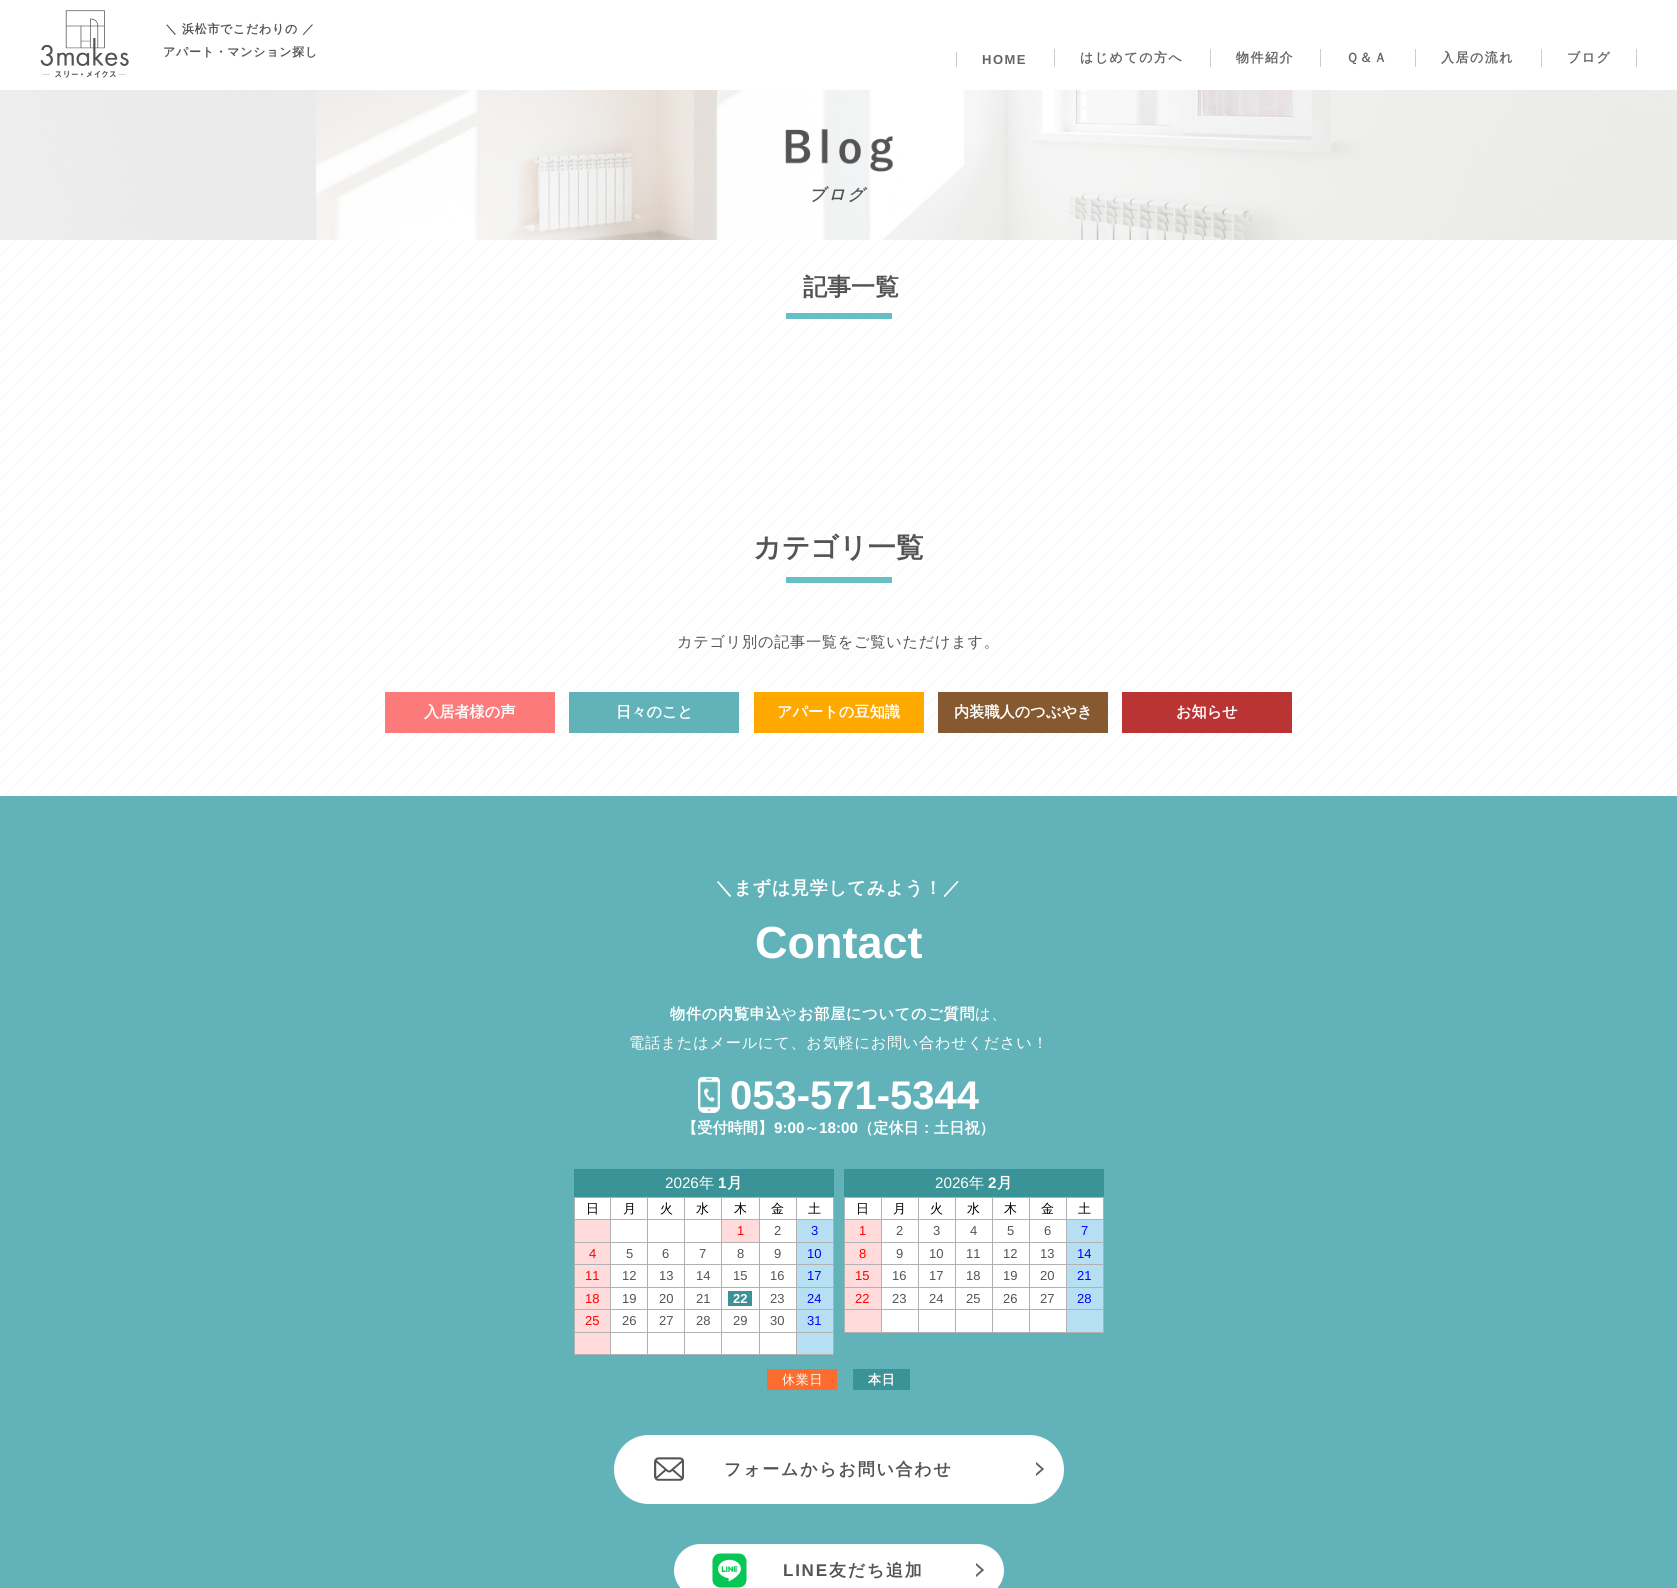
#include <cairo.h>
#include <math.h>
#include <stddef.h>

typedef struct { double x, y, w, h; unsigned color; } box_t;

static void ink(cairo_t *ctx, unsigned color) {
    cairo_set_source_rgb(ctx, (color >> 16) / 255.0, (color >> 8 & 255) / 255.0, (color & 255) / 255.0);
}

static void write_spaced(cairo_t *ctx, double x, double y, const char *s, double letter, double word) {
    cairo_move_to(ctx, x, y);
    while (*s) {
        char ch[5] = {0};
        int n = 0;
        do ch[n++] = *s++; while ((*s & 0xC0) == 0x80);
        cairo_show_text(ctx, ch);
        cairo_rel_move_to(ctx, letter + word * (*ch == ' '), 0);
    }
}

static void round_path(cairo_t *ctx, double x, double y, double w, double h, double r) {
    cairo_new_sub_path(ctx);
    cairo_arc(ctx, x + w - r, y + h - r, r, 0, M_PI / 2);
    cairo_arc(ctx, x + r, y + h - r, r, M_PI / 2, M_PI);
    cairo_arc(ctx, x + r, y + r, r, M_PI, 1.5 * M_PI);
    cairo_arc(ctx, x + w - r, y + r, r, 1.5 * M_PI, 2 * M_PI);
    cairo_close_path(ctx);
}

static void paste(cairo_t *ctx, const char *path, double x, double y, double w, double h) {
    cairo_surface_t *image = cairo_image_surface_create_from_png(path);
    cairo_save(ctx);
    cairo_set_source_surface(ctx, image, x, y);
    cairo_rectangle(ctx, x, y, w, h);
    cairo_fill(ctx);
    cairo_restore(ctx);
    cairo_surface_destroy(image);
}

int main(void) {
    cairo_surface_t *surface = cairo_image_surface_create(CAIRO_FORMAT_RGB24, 1677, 1588);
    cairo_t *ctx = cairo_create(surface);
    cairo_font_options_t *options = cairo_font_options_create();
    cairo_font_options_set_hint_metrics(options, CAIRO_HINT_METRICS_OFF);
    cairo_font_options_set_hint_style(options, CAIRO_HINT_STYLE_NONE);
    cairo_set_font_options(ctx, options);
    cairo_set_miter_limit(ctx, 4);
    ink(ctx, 0xFFFFFF);
    cairo_paint(ctx);
    paste(ctx, "media/1.png", 40, 10, 89, 68);
    cairo_select_font_face(ctx, "WenQuanYi Zen Hei", CAIRO_FONT_SLANT_NORMAL, CAIRO_FONT_WEIGHT_BOLD);
    cairo_set_font_size(ctx, 12);
    ink(ctx, 0x545454);
    write_spaced(ctx, 165, 33, "＼ 浜松市でこだわりの ／", 0.7, 0);
    write_spaced(ctx, 163, 56, "アパート・マンション探し", 0.7, 0);
    ink(ctx, 0xCCCCCC);
    cairo_rectangle(ctx, 956, 52, 1, 15);
    cairo_fill(ctx);
    cairo_select_font_face(ctx, "Liberation Sans", CAIRO_FONT_SLANT_NORMAL, CAIRO_FONT_WEIGHT_BOLD);
    cairo_set_font_size(ctx, 13);
    ink(ctx, 0x656565);
    write_spaced(ctx, 982, 64, "HOME", 1.5, 0);
    ink(ctx, 0xCCCCCC);
    cairo_rectangle(ctx, 1054, 49, 1, 18);
    cairo_fill(ctx);
    cairo_select_font_face(ctx, "WenQuanYi Zen Hei", CAIRO_FONT_SLANT_NORMAL, CAIRO_FONT_WEIGHT_BOLD);
    ink(ctx, 0x656565);
    write_spaced(ctx, 1080, 62, "はじめての方へ", 1.5, 0);
    ink(ctx, 0xCCCCCC);
    cairo_rectangle(ctx, 1210, 49, 1, 18);
    cairo_fill(ctx);
    ink(ctx, 0x656565);
    write_spaced(ctx, 1236, 62, "物件紹介", 1.5, 0);
    ink(ctx, 0xCCCCCC);
    cairo_rectangle(ctx, 1320, 49, 1, 18);
    cairo_fill(ctx);
    ink(ctx, 0x656565);
    write_spaced(ctx, 1346, 62, "Ｑ＆Ａ", 1.5, 0);
    ink(ctx, 0xCCCCCC);
    cairo_rectangle(ctx, 1415, 49, 1, 18);
    cairo_fill(ctx);
    ink(ctx, 0x656565);
    write_spaced(ctx, 1441, 62, "入居の流れ", 1.5, 0);
    ink(ctx, 0xCCCCCC);
    cairo_rectangle(ctx, 1636, 49, 1, 18);
    cairo_fill(ctx);
    cairo_rectangle(ctx, 1541, 49, 1, 18);
    cairo_fill(ctx);
    ink(ctx, 0x656565);
    write_spaced(ctx, 1567, 62, "ブログ", 1.5, 0);
    paste(ctx, "media/2.png", 0, 90, 1677, 150);
    paste(ctx, "media/3.png", 785, 129, 109, 43);
    cairo_select_font_face(ctx, "WenQuanYi Zen Hei", CAIRO_FONT_SLANT_ITALIC, CAIRO_FONT_WEIGHT_BOLD);
    cairo_set_font_size(ctx, 16);
    ink(ctx, 0x545454);
    write_spaced(ctx, 809, 200, "ブログ", 3, 0);
    paste(ctx, "media/4.png", 0, 242, 1677, 554);
    cairo_select_font_face(ctx, "WenQuanYi Zen Hei", CAIRO_FONT_SLANT_NORMAL, CAIRO_FONT_WEIGHT_BOLD);
    cairo_set_font_size(ctx, 24);
    cairo_move_to(ctx, 803, 295);
    cairo_show_text(ctx, "記事一覧");
    ink(ctx, 0x66BFC6);
    cairo_rectangle(ctx, 786, 313, 106, 6);
    cairo_fill(ctx);
    cairo_set_font_size(ctx, 28);
    ink(ctx, 0x545454);
    cairo_move_to(ctx, 753, 557);
    cairo_show_text(ctx, "カテゴリ一覧");
    ink(ctx, 0x66BFC6);
    cairo_rectangle(ctx, 786, 577, 106, 6);
    cairo_fill(ctx);
    cairo_select_font_face(ctx, "WenQuanYi Zen Hei Medium", CAIRO_FONT_SLANT_NORMAL, CAIRO_FONT_WEIGHT_NORMAL);
    cairo_set_font_size(ctx, 15.2);
    ink(ctx, 0x545454);
    write_spaced(ctx, 677, 647, "カテゴリ別の記事一覧をご覧いただけます。", 0.7, 0);
    ink(ctx, 0xFC7A7A);
    cairo_rectangle(ctx, 385, 692, 170, 41);
    cairo_fill(ctx);
    cairo_select_font_face(ctx, "WenQuanYi Zen Hei", CAIRO_FONT_SLANT_NORMAL, CAIRO_FONT_WEIGHT_BOLD);
    ink(ctx, 0xFFFFFF);
    cairo_move_to(ctx, 424, 717);
    cairo_show_text(ctx, "入居者様の声");
    ink(ctx, 0x62B3B9);
    cairo_rectangle(ctx, 569, 692, 170, 41);
    cairo_fill(ctx);
    ink(ctx, 0xFFFFFF);
    cairo_move_to(ctx, 616, 717);
    cairo_show_text(ctx, "日々のこと");
    ink(ctx, 0xFFA800);
    cairo_rectangle(ctx, 754, 692, 170, 41);
    cairo_fill(ctx);
    ink(ctx, 0xFFFFFF);
    cairo_move_to(ctx, 777, 717);
    cairo_show_text(ctx, "アパートの豆知識");
    ink(ctx, 0x865930);
    cairo_rectangle(ctx, 938, 692, 170, 41);
    cairo_fill(ctx);
    ink(ctx, 0xFFFFFF);
    cairo_move_to(ctx, 954, 717);
    cairo_show_text(ctx, "内装職人のつぶやき");
    ink(ctx, 0xBB3434);
    cairo_rectangle(ctx, 1122, 692, 170, 41);
    cairo_fill(ctx);
    ink(ctx, 0xFFFFFF);
    cairo_move_to(ctx, 1176, 717);
    cairo_show_text(ctx, "お知らせ");
    ink(ctx, 0x62B3B9);
    cairo_rectangle(ctx, 0, 796, 1677, 792);
    cairo_fill(ctx);
    cairo_set_font_size(ctx, 18);
    ink(ctx, 0xFFFFFF);
    write_spaced(ctx, 715, 894, "＼まずは見学してみよう！／", 0.7, 0);
    cairo_select_font_face(ctx, "Liberation Sans", CAIRO_FONT_SLANT_NORMAL, CAIRO_FONT_WEIGHT_BOLD);
    cairo_set_font_size(ctx, 45);
    cairo_move_to(ctx, 755, 958);
    cairo_show_text(ctx, "Contact");
    cairo_select_font_face(ctx, "WenQuanYi Zen Hei", CAIRO_FONT_SLANT_NORMAL, CAIRO_FONT_WEIGHT_BOLD);
    cairo_set_font_size(ctx, 15.2);
    write_spaced(ctx, 670, 1019, "物件の内覧申込", 0.7, 0);
    cairo_select_font_face(ctx, "WenQuanYi Zen Hei Medium", CAIRO_FONT_SLANT_NORMAL, CAIRO_FONT_WEIGHT_NORMAL);
    write_spaced(ctx, 781, 1019, "や", 0.7, 0);
    cairo_select_font_face(ctx, "WenQuanYi Zen Hei", CAIRO_FONT_SLANT_NORMAL, CAIRO_FONT_WEIGHT_BOLD);
    write_spaced(ctx, 798, 1019, "お部屋についてのご質問", 0.7, 0);
    cairo_select_font_face(ctx, "WenQuanYi Zen Hei Medium", CAIRO_FONT_SLANT_NORMAL, CAIRO_FONT_WEIGHT_NORMAL);
    write_spaced(ctx, 975, 1019, "は、", 0.7, 0);
    write_spaced(ctx, 629, 1048, "電話またはメールにて、お気軽にお問い合わせください！", 0.7, 0);
    paste(ctx, "media/5.png", 698, 1077, 22, 36);
    cairo_select_font_face(ctx, "Liberation Sans", CAIRO_FONT_SLANT_NORMAL, CAIRO_FONT_WEIGHT_BOLD);
    cairo_set_font_size(ctx, 40);
    cairo_move_to(ctx, 730, 1109);
    cairo_show_text(ctx, "053-571-5344");
    cairo_select_font_face(ctx, "WenQuanYi Zen Hei", CAIRO_FONT_SLANT_NORMAL, CAIRO_FONT_WEIGHT_BOLD);
    cairo_set_font_size(ctx, 15.2);
    cairo_move_to(ctx, 682, 1133);
    cairo_show_text(ctx, "【受付時間】");
    cairo_select_font_face(ctx, "Liberation Sans", CAIRO_FONT_SLANT_NORMAL, CAIRO_FONT_WEIGHT_BOLD);
    cairo_move_to(ctx, 774, 1133);
    cairo_show_text(ctx, "9:00");
    cairo_select_font_face(ctx, "WenQuanYi Zen Hei", CAIRO_FONT_SLANT_NORMAL, CAIRO_FONT_WEIGHT_BOLD);
    cairo_move_to(ctx, 804, 1133);
    cairo_show_text(ctx, "～");
    cairo_select_font_face(ctx, "Liberation Sans", CAIRO_FONT_SLANT_NORMAL, CAIRO_FONT_WEIGHT_BOLD);
    cairo_move_to(ctx, 819, 1133);
    cairo_show_text(ctx, "18:00");
    cairo_select_font_face(ctx, "WenQuanYi Zen Hei", CAIRO_FONT_SLANT_NORMAL, CAIRO_FONT_WEIGHT_BOLD);
    cairo_move_to(ctx, 858, 1133);
    cairo_show_text(ctx, "（定休日：土日祝）");
    ink(ctx, 0x399397);
    cairo_rectangle(ctx, 574, 1169, 260, 28);
    cairo_fill(ctx);
    cairo_select_font_face(ctx, "Liberation Sans", CAIRO_FONT_SLANT_NORMAL, CAIRO_FONT_WEIGHT_NORMAL);
    ink(ctx, 0xFFFFFF);
    cairo_move_to(ctx, 665, 1188);
    cairo_show_text(ctx, "2026");
    cairo_select_font_face(ctx, "WenQuanYi Zen Hei Medium", CAIRO_FONT_SLANT_NORMAL, CAIRO_FONT_WEIGHT_NORMAL);
    cairo_move_to(ctx, 699, 1188);
    cairo_show_text(ctx, "年");
    cairo_select_font_face(ctx, "Liberation Sans", CAIRO_FONT_SLANT_NORMAL, CAIRO_FONT_WEIGHT_BOLD);
    cairo_move_to(ctx, 718, 1188);
    cairo_show_text(ctx, "1");
    cairo_select_font_face(ctx, "WenQuanYi Zen Hei", CAIRO_FONT_SLANT_NORMAL, CAIRO_FONT_WEIGHT_BOLD);
    cairo_move_to(ctx, 727, 1188);
    cairo_show_text(ctx, "月");
    {
        static const box_t items[] = {
            {575, 1198, 35, 21, 0xFFFFFF},
            {796, 1197, 38, 1, 0xB1B1B1},
            {796, 1219, 38, 1, 0xB1B1B1},
            {796, 1242, 38, 1, 0xB1B1B1},
            {796, 1264, 38, 1, 0xB1B1B1},
            {796, 1287, 38, 1, 0xB1B1B1},
            {796, 1309, 38, 1, 0xB1B1B1},
            {796, 1332, 38, 1, 0xB1B1B1},
            {833, 1332, 1, 23, 0xB1B1B1},
            {796, 1354, 38, 1, 0xB1B1B1},
            {796, 1332, 1, 23, 0xB1B1B1},
            {759, 1332, 38, 1, 0xB1B1B1},
            {796, 1309, 1, 24, 0xB1B1B1},
            {759, 1309, 38, 1, 0xB1B1B1},
            {796, 1287, 1, 23, 0xB1B1B1},
            {759, 1287, 38, 1, 0xB1B1B1},
            {796, 1264, 1, 24, 0xB1B1B1},
            {759, 1264, 38, 1, 0xB1B1B1},
            {796, 1242, 1, 23, 0xB1B1B1},
            {759, 1242, 38, 1, 0xB1B1B1},
            {796, 1219, 1, 24, 0xB1B1B1},
            {759, 1219, 38, 1, 0xB1B1B1},
            {796, 1197, 1, 23, 0xB1B1B1},
            {759, 1197, 38, 1, 0xB1B1B1},
            {759, 1354, 38, 1, 0xB1B1B1},
            {759, 1332, 1, 23, 0xB1B1B1},
            {721, 1332, 39, 1, 0xB1B1B1},
            {759, 1309, 1, 24, 0xB1B1B1},
            {721, 1309, 39, 1, 0xB1B1B1},
            {759, 1287, 1, 23, 0xB1B1B1},
            {721, 1287, 39, 1, 0xB1B1B1},
            {759, 1264, 1, 24, 0xB1B1B1},
            {721, 1264, 39, 1, 0xB1B1B1},
            {759, 1242, 1, 23, 0xB1B1B1},
            {721, 1242, 39, 1, 0xB1B1B1},
            {759, 1219, 1, 24, 0xB1B1B1},
            {721, 1219, 39, 1, 0xB1B1B1},
            {759, 1197, 1, 23, 0xB1B1B1},
            {721, 1197, 39, 1, 0xB1B1B1},
            {721, 1354, 39, 1, 0xB1B1B1},
            {721, 1332, 1, 23, 0xB1B1B1},
            {684, 1332, 38, 1, 0xB1B1B1},
            {721, 1309, 1, 24, 0xB1B1B1},
            {684, 1309, 38, 1, 0xB1B1B1},
            {721, 1287, 1, 23, 0xB1B1B1},
            {684, 1287, 38, 1, 0xB1B1B1},
            {721, 1264, 1, 24, 0xB1B1B1},
            {684, 1264, 38, 1, 0xB1B1B1},
            {721, 1242, 1, 23, 0xB1B1B1},
            {684, 1242, 38, 1, 0xB1B1B1},
            {721, 1219, 1, 24, 0xB1B1B1},
            {684, 1219, 38, 1, 0xB1B1B1},
            {721, 1197, 1, 23, 0xB1B1B1},
            {684, 1197, 38, 1, 0xB1B1B1},
            {684, 1354, 38, 1, 0xB1B1B1},
            {684, 1332, 1, 23, 0xB1B1B1},
            {647, 1332, 38, 1, 0xB1B1B1},
            {684, 1309, 1, 24, 0xB1B1B1},
            {647, 1309, 38, 1, 0xB1B1B1},
            {684, 1287, 1, 23, 0xB1B1B1},
            {647, 1287, 38, 1, 0xB1B1B1},
            {684, 1264, 1, 24, 0xB1B1B1},
            {647, 1264, 38, 1, 0xB1B1B1},
            {684, 1242, 1, 23, 0xB1B1B1},
            {647, 1242, 38, 1, 0xB1B1B1},
            {684, 1219, 1, 24, 0xB1B1B1},
            {647, 1219, 38, 1, 0xB1B1B1},
            {684, 1197, 1, 23, 0xB1B1B1},
            {647, 1197, 38, 1, 0xB1B1B1},
            {647, 1354, 38, 1, 0xB1B1B1},
            {647, 1332, 1, 23, 0xB1B1B1},
            {610, 1332, 38, 1, 0xB1B1B1},
            {647, 1309, 1, 24, 0xB1B1B1},
            {610, 1309, 38, 1, 0xB1B1B1},
            {647, 1287, 1, 23, 0xB1B1B1},
            {610, 1287, 38, 1, 0xB1B1B1},
            {647, 1264, 1, 24, 0xB1B1B1},
            {610, 1264, 38, 1, 0xB1B1B1},
            {647, 1242, 1, 23, 0xB1B1B1},
            {610, 1242, 38, 1, 0xB1B1B1},
            {647, 1219, 1, 24, 0xB1B1B1},
            {610, 1219, 38, 1, 0xB1B1B1},
            {647, 1197, 1, 23, 0xB1B1B1},
            {610, 1197, 38, 1, 0xB1B1B1},
            {610, 1354, 38, 1, 0xB1B1B1},
            {610, 1332, 1, 23, 0xB1B1B1},
            {574, 1332, 37, 1, 0xB1B1B1},
            {610, 1309, 1, 24, 0xB1B1B1},
            {574, 1309, 37, 1, 0xB1B1B1},
            {610, 1287, 1, 23, 0xB1B1B1},
            {574, 1287, 37, 1, 0xB1B1B1},
            {610, 1264, 1, 24, 0xB1B1B1},
            {574, 1264, 37, 1, 0xB1B1B1},
            {610, 1242, 1, 23, 0xB1B1B1},
            {574, 1242, 37, 1, 0xB1B1B1},
            {610, 1219, 1, 24, 0xB1B1B1},
            {574, 1219, 37, 1, 0xB1B1B1},
            {610, 1197, 1, 23, 0xB1B1B1},
            {574, 1197, 37, 1, 0xB1B1B1},
            {574, 1354, 37, 1, 0xB1B1B1},
            {574, 1332, 1, 23, 0xB1B1B1},
            {574, 1309, 1, 24, 0xB1B1B1},
            {574, 1287, 1, 23, 0xB1B1B1},
            {574, 1264, 1, 24, 0xB1B1B1},
            {574, 1242, 1, 23, 0xB1B1B1},
            {574, 1219, 1, 24, 0xB1B1B1},
            {574, 1197, 1, 23, 0xB1B1B1},
        };
        for (size_t i = 0; i < sizeof items / sizeof *items; i++) {
            ink(ctx, items[i].color);
            cairo_rectangle(ctx, items[i].x, items[i].y, items[i].w, items[i].h);
            cairo_fill(ctx);
        }
    }
    cairo_select_font_face(ctx, "WenQuanYi Zen Hei Medium", CAIRO_FONT_SLANT_NORMAL, CAIRO_FONT_WEIGHT_NORMAL);
    cairo_set_font_size(ctx, 13);
    ink(ctx, 0x000000);
    cairo_move_to(ctx, 586, 1213);
    cairo_show_text(ctx, "日");
    ink(ctx, 0xFFFFFF);
    cairo_rectangle(ctx, 611, 1198, 36, 21);
    cairo_fill(ctx);
    ink(ctx, 0x000000);
    cairo_move_to(ctx, 623, 1213);
    cairo_show_text(ctx, "月");
    ink(ctx, 0xFFFFFF);
    cairo_rectangle(ctx, 648, 1198, 36, 21);
    cairo_fill(ctx);
    ink(ctx, 0x000000);
    cairo_move_to(ctx, 660, 1213);
    cairo_show_text(ctx, "火");
    ink(ctx, 0xFFFFFF);
    cairo_rectangle(ctx, 685, 1198, 36, 21);
    cairo_fill(ctx);
    ink(ctx, 0x000000);
    cairo_move_to(ctx, 696, 1213);
    cairo_show_text(ctx, "水");
    ink(ctx, 0xFFFFFF);
    cairo_rectangle(ctx, 722, 1198, 37, 21);
    cairo_fill(ctx);
    ink(ctx, 0x000000);
    cairo_move_to(ctx, 734, 1213);
    cairo_show_text(ctx, "木");
    ink(ctx, 0xFFFFFF);
    cairo_rectangle(ctx, 760, 1198, 36, 21);
    cairo_fill(ctx);
    ink(ctx, 0x000000);
    cairo_move_to(ctx, 771, 1213);
    cairo_show_text(ctx, "金");
    {
        static const box_t items[] = {
            {797, 1198, 36, 21, 0xFFFFFF},
            {833, 1309, 1, 24, 0xB1B1B1},
            {833, 1287, 1, 23, 0xB1B1B1},
            {833, 1264, 1, 24, 0xB1B1B1},
            {833, 1242, 1, 23, 0xB1B1B1},
            {833, 1219, 1, 24, 0xB1B1B1},
            {833, 1197, 1, 23, 0xB1B1B1},
        };
        for (size_t i = 0; i < sizeof items / sizeof *items; i++) {
            ink(ctx, items[i].color);
            cairo_rectangle(ctx, items[i].x, items[i].y, items[i].w, items[i].h);
            cairo_fill(ctx);
        }
    }
    ink(ctx, 0x000000);
    cairo_move_to(ctx, 808, 1213);
    cairo_show_text(ctx, "土");
    {
        static const box_t items[] = {
            {575, 1220, 35, 22, 0xFFDBDB},
            {611, 1220, 36, 22, 0xFFFFFF},
            {648, 1220, 36, 22, 0xFFFFFF},
            {685, 1220, 36, 22, 0xFFFFFF},
            {722, 1220, 37, 22, 0xFFDBDB},
        };
        for (size_t i = 0; i < sizeof items / sizeof *items; i++) {
            ink(ctx, items[i].color);
            cairo_rectangle(ctx, items[i].x, items[i].y, items[i].w, items[i].h);
            cairo_fill(ctx);
        }
    }
    cairo_select_font_face(ctx, "Liberation Sans", CAIRO_FONT_SLANT_NORMAL, CAIRO_FONT_WEIGHT_NORMAL);
    ink(ctx, 0xFF0000);
    cairo_move_to(ctx, 737, 1235);
    cairo_show_text(ctx, "1");
    ink(ctx, 0xFFFFFF);
    cairo_rectangle(ctx, 760, 1220, 36, 22);
    cairo_fill(ctx);
    ink(ctx, 0x545454);
    cairo_move_to(ctx, 774, 1235);
    cairo_show_text(ctx, "2");
    ink(ctx, 0xB7DFF4);
    cairo_rectangle(ctx, 797, 1220, 36, 22);
    cairo_fill(ctx);
    ink(ctx, 0x0000FF);
    cairo_move_to(ctx, 811, 1235);
    cairo_show_text(ctx, "3");
    ink(ctx, 0xFFDBDB);
    cairo_rectangle(ctx, 575, 1243, 35, 21);
    cairo_fill(ctx);
    ink(ctx, 0xFF0000);
    cairo_move_to(ctx, 589, 1258);
    cairo_show_text(ctx, "4");
    ink(ctx, 0xFFFFFF);
    cairo_rectangle(ctx, 611, 1243, 36, 21);
    cairo_fill(ctx);
    ink(ctx, 0x545454);
    cairo_move_to(ctx, 626, 1258);
    cairo_show_text(ctx, "5");
    ink(ctx, 0xFFFFFF);
    cairo_rectangle(ctx, 648, 1243, 36, 21);
    cairo_fill(ctx);
    ink(ctx, 0x545454);
    cairo_move_to(ctx, 662, 1258);
    cairo_show_text(ctx, "6");
    ink(ctx, 0xFFFFFF);
    cairo_rectangle(ctx, 685, 1243, 36, 21);
    cairo_fill(ctx);
    ink(ctx, 0x545454);
    cairo_move_to(ctx, 699, 1258);
    cairo_show_text(ctx, "7");
    ink(ctx, 0xFFFFFF);
    cairo_rectangle(ctx, 722, 1243, 37, 21);
    cairo_fill(ctx);
    ink(ctx, 0x545454);
    cairo_move_to(ctx, 737, 1258);
    cairo_show_text(ctx, "8");
    ink(ctx, 0xFFFFFF);
    cairo_rectangle(ctx, 760, 1243, 36, 21);
    cairo_fill(ctx);
    ink(ctx, 0x545454);
    cairo_move_to(ctx, 774, 1258);
    cairo_show_text(ctx, "9");
    ink(ctx, 0xB7DFF4);
    cairo_rectangle(ctx, 797, 1243, 36, 21);
    cairo_fill(ctx);
    ink(ctx, 0x0000FF);
    cairo_move_to(ctx, 807, 1258);
    cairo_show_text(ctx, "10");
    ink(ctx, 0xFFDBDB);
    cairo_rectangle(ctx, 575, 1265, 35, 22);
    cairo_fill(ctx);
    ink(ctx, 0xFF0000);
    cairo_move_to(ctx, 585, 1280);
    cairo_show_text(ctx, "11");
    ink(ctx, 0xFFFFFF);
    cairo_rectangle(ctx, 611, 1265, 36, 22);
    cairo_fill(ctx);
    ink(ctx, 0x545454);
    cairo_move_to(ctx, 622, 1280);
    cairo_show_text(ctx, "12");
    ink(ctx, 0xFFFFFF);
    cairo_rectangle(ctx, 648, 1265, 36, 22);
    cairo_fill(ctx);
    ink(ctx, 0x545454);
    cairo_move_to(ctx, 659, 1280);
    cairo_show_text(ctx, "13");
    ink(ctx, 0xFFFFFF);
    cairo_rectangle(ctx, 685, 1265, 36, 22);
    cairo_fill(ctx);
    ink(ctx, 0x545454);
    cairo_move_to(ctx, 696, 1280);
    cairo_show_text(ctx, "14");
    ink(ctx, 0xFFFFFF);
    cairo_rectangle(ctx, 722, 1265, 37, 22);
    cairo_fill(ctx);
    ink(ctx, 0x545454);
    cairo_move_to(ctx, 733, 1280);
    cairo_show_text(ctx, "15");
    ink(ctx, 0xFFFFFF);
    cairo_rectangle(ctx, 760, 1265, 36, 22);
    cairo_fill(ctx);
    ink(ctx, 0x545454);
    cairo_move_to(ctx, 770, 1280);
    cairo_show_text(ctx, "16");
    ink(ctx, 0xB7DFF4);
    cairo_rectangle(ctx, 797, 1265, 36, 22);
    cairo_fill(ctx);
    ink(ctx, 0x0000FF);
    cairo_move_to(ctx, 807, 1280);
    cairo_show_text(ctx, "17");
    ink(ctx, 0xFFDBDB);
    cairo_rectangle(ctx, 575, 1288, 35, 21);
    cairo_fill(ctx);
    ink(ctx, 0xFF0000);
    cairo_move_to(ctx, 585, 1303);
    cairo_show_text(ctx, "18");
    ink(ctx, 0xFFFFFF);
    cairo_rectangle(ctx, 611, 1288, 36, 21);
    cairo_fill(ctx);
    ink(ctx, 0x545454);
    cairo_move_to(ctx, 622, 1303);
    cairo_show_text(ctx, "19");
    ink(ctx, 0xFFFFFF);
    cairo_rectangle(ctx, 648, 1288, 36, 21);
    cairo_fill(ctx);
    ink(ctx, 0x545454);
    cairo_move_to(ctx, 659, 1303);
    cairo_show_text(ctx, "20");
    ink(ctx, 0xFFFFFF);
    cairo_rectangle(ctx, 685, 1288, 36, 21);
    cairo_fill(ctx);
    ink(ctx, 0x545454);
    cairo_move_to(ctx, 696, 1303);
    cairo_show_text(ctx, "21");
    ink(ctx, 0xFFFFFF);
    cairo_rectangle(ctx, 722, 1288, 37, 21);
    cairo_fill(ctx);
    ink(ctx, 0x399397);
    cairo_rectangle(ctx, 728, 1291, 24, 15);
    cairo_fill(ctx);
    cairo_select_font_face(ctx, "Liberation Sans", CAIRO_FONT_SLANT_NORMAL, CAIRO_FONT_WEIGHT_BOLD);
    ink(ctx, 0xFFFFFF);
    cairo_move_to(ctx, 733, 1303);
    cairo_show_text(ctx, "22");
    cairo_rectangle(ctx, 760, 1288, 36, 21);
    cairo_fill(ctx);
    cairo_select_font_face(ctx, "Liberation Sans", CAIRO_FONT_SLANT_NORMAL, CAIRO_FONT_WEIGHT_NORMAL);
    ink(ctx, 0x545454);
    cairo_move_to(ctx, 770, 1303);
    cairo_show_text(ctx, "23");
    ink(ctx, 0xB7DFF4);
    cairo_rectangle(ctx, 797, 1288, 36, 21);
    cairo_fill(ctx);
    ink(ctx, 0x0000FF);
    cairo_move_to(ctx, 807, 1303);
    cairo_show_text(ctx, "24");
    ink(ctx, 0xFFDBDB);
    cairo_rectangle(ctx, 575, 1310, 35, 22);
    cairo_fill(ctx);
    ink(ctx, 0xFF0000);
    cairo_move_to(ctx, 585, 1325);
    cairo_show_text(ctx, "25");
    ink(ctx, 0xFFFFFF);
    cairo_rectangle(ctx, 611, 1310, 36, 22);
    cairo_fill(ctx);
    ink(ctx, 0x545454);
    cairo_move_to(ctx, 622, 1325);
    cairo_show_text(ctx, "26");
    ink(ctx, 0xFFFFFF);
    cairo_rectangle(ctx, 648, 1310, 36, 22);
    cairo_fill(ctx);
    ink(ctx, 0x545454);
    cairo_move_to(ctx, 659, 1325);
    cairo_show_text(ctx, "27");
    ink(ctx, 0xFFFFFF);
    cairo_rectangle(ctx, 685, 1310, 36, 22);
    cairo_fill(ctx);
    ink(ctx, 0x545454);
    cairo_move_to(ctx, 696, 1325);
    cairo_show_text(ctx, "28");
    ink(ctx, 0xFFFFFF);
    cairo_rectangle(ctx, 722, 1310, 37, 22);
    cairo_fill(ctx);
    ink(ctx, 0x545454);
    cairo_move_to(ctx, 733, 1325);
    cairo_show_text(ctx, "29");
    ink(ctx, 0xFFFFFF);
    cairo_rectangle(ctx, 760, 1310, 36, 22);
    cairo_fill(ctx);
    ink(ctx, 0x545454);
    cairo_move_to(ctx, 770, 1325);
    cairo_show_text(ctx, "30");
    ink(ctx, 0xB7DFF4);
    cairo_rectangle(ctx, 797, 1310, 36, 22);
    cairo_fill(ctx);
    ink(ctx, 0x0000FF);
    cairo_move_to(ctx, 807, 1325);
    cairo_show_text(ctx, "31");
    {
        static const box_t items[] = {
            {575, 1333, 35, 21, 0xFFDBDB},
            {611, 1333, 36, 21, 0xFFFFFF},
            {648, 1333, 36, 21, 0xFFFFFF},
            {685, 1333, 36, 21, 0xFFFFFF},
            {722, 1333, 37, 21, 0xFFFFFF},
            {760, 1333, 36, 21, 0xFFFFFF},
            {797, 1333, 36, 21, 0xB7DFF4},
            {844, 1169, 260, 28, 0x399397},
        };
        for (size_t i = 0; i < sizeof items / sizeof *items; i++) {
            ink(ctx, items[i].color);
            cairo_rectangle(ctx, items[i].x, items[i].y, items[i].w, items[i].h);
            cairo_fill(ctx);
        }
    }
    cairo_set_font_size(ctx, 15.2);
    ink(ctx, 0xFFFFFF);
    cairo_move_to(ctx, 935, 1188);
    cairo_show_text(ctx, "2026");
    cairo_select_font_face(ctx, "WenQuanYi Zen Hei Medium", CAIRO_FONT_SLANT_NORMAL, CAIRO_FONT_WEIGHT_NORMAL);
    cairo_move_to(ctx, 969, 1188);
    cairo_show_text(ctx, "年");
    cairo_select_font_face(ctx, "Liberation Sans", CAIRO_FONT_SLANT_NORMAL, CAIRO_FONT_WEIGHT_BOLD);
    cairo_move_to(ctx, 988, 1188);
    cairo_show_text(ctx, "2");
    cairo_select_font_face(ctx, "WenQuanYi Zen Hei", CAIRO_FONT_SLANT_NORMAL, CAIRO_FONT_WEIGHT_BOLD);
    cairo_move_to(ctx, 997, 1188);
    cairo_show_text(ctx, "月");
    {
        static const box_t items[] = {
            {845, 1198, 36, 21, 0xFFFFFF},
            {1066, 1197, 38, 1, 0xB1B1B1},
            {1066, 1219, 38, 1, 0xB1B1B1},
            {1066, 1242, 38, 1, 0xB1B1B1},
            {1066, 1264, 38, 1, 0xB1B1B1},
            {1066, 1287, 38, 1, 0xB1B1B1},
            {1066, 1309, 38, 1, 0xB1B1B1},
            {1103, 1309, 1, 24, 0xB1B1B1},
            {1066, 1332, 38, 1, 0xB1B1B1},
            {1066, 1309, 1, 24, 0xB1B1B1},
            {1029, 1309, 38, 1, 0xB1B1B1},
            {1066, 1287, 1, 23, 0xB1B1B1},
            {1029, 1287, 38, 1, 0xB1B1B1},
            {1066, 1264, 1, 24, 0xB1B1B1},
            {1029, 1264, 38, 1, 0xB1B1B1},
            {1066, 1242, 1, 23, 0xB1B1B1},
            {1029, 1242, 38, 1, 0xB1B1B1},
            {1066, 1219, 1, 24, 0xB1B1B1},
            {1029, 1219, 38, 1, 0xB1B1B1},
            {1066, 1197, 1, 23, 0xB1B1B1},
            {1029, 1197, 38, 1, 0xB1B1B1},
            {1029, 1332, 38, 1, 0xB1B1B1},
            {1029, 1309, 1, 24, 0xB1B1B1},
            {992, 1309, 38, 1, 0xB1B1B1},
            {1029, 1287, 1, 23, 0xB1B1B1},
            {992, 1287, 38, 1, 0xB1B1B1},
            {1029, 1264, 1, 24, 0xB1B1B1},
            {992, 1264, 38, 1, 0xB1B1B1},
            {1029, 1242, 1, 23, 0xB1B1B1},
            {992, 1242, 38, 1, 0xB1B1B1},
            {1029, 1219, 1, 24, 0xB1B1B1},
            {992, 1219, 38, 1, 0xB1B1B1},
            {1029, 1197, 1, 23, 0xB1B1B1},
            {992, 1197, 38, 1, 0xB1B1B1},
            {992, 1332, 38, 1, 0xB1B1B1},
            {992, 1309, 1, 24, 0xB1B1B1},
            {955, 1309, 38, 1, 0xB1B1B1},
            {992, 1287, 1, 23, 0xB1B1B1},
            {955, 1287, 38, 1, 0xB1B1B1},
            {992, 1264, 1, 24, 0xB1B1B1},
            {955, 1264, 38, 1, 0xB1B1B1},
            {992, 1242, 1, 23, 0xB1B1B1},
            {955, 1242, 38, 1, 0xB1B1B1},
            {992, 1219, 1, 24, 0xB1B1B1},
            {955, 1219, 38, 1, 0xB1B1B1},
            {992, 1197, 1, 23, 0xB1B1B1},
            {955, 1197, 38, 1, 0xB1B1B1},
            {955, 1332, 38, 1, 0xB1B1B1},
            {955, 1309, 1, 24, 0xB1B1B1},
            {918, 1309, 38, 1, 0xB1B1B1},
            {955, 1287, 1, 23, 0xB1B1B1},
            {918, 1287, 38, 1, 0xB1B1B1},
            {955, 1264, 1, 24, 0xB1B1B1},
            {918, 1264, 38, 1, 0xB1B1B1},
            {955, 1242, 1, 23, 0xB1B1B1},
            {918, 1242, 38, 1, 0xB1B1B1},
            {955, 1219, 1, 24, 0xB1B1B1},
            {918, 1219, 38, 1, 0xB1B1B1},
            {955, 1197, 1, 23, 0xB1B1B1},
            {918, 1197, 38, 1, 0xB1B1B1},
            {918, 1332, 38, 1, 0xB1B1B1},
            {918, 1309, 1, 24, 0xB1B1B1},
            {881, 1309, 38, 1, 0xB1B1B1},
            {918, 1287, 1, 23, 0xB1B1B1},
            {881, 1287, 38, 1, 0xB1B1B1},
            {918, 1264, 1, 24, 0xB1B1B1},
            {881, 1264, 38, 1, 0xB1B1B1},
            {918, 1242, 1, 23, 0xB1B1B1},
            {881, 1242, 38, 1, 0xB1B1B1},
            {918, 1219, 1, 24, 0xB1B1B1},
            {881, 1219, 38, 1, 0xB1B1B1},
            {918, 1197, 1, 23, 0xB1B1B1},
            {881, 1197, 38, 1, 0xB1B1B1},
            {881, 1332, 38, 1, 0xB1B1B1},
            {881, 1309, 1, 24, 0xB1B1B1},
            {844, 1309, 38, 1, 0xB1B1B1},
            {881, 1287, 1, 23, 0xB1B1B1},
            {844, 1287, 38, 1, 0xB1B1B1},
            {881, 1264, 1, 24, 0xB1B1B1},
            {844, 1264, 38, 1, 0xB1B1B1},
            {881, 1242, 1, 23, 0xB1B1B1},
            {844, 1242, 38, 1, 0xB1B1B1},
            {881, 1219, 1, 24, 0xB1B1B1},
            {844, 1219, 38, 1, 0xB1B1B1},
            {881, 1197, 1, 23, 0xB1B1B1},
            {844, 1197, 38, 1, 0xB1B1B1},
            {844, 1332, 38, 1, 0xB1B1B1},
            {844, 1309, 1, 24, 0xB1B1B1},
            {844, 1287, 1, 23, 0xB1B1B1},
            {844, 1264, 1, 24, 0xB1B1B1},
            {844, 1242, 1, 23, 0xB1B1B1},
            {844, 1219, 1, 24, 0xB1B1B1},
            {844, 1197, 1, 23, 0xB1B1B1},
        };
        for (size_t i = 0; i < sizeof items / sizeof *items; i++) {
            ink(ctx, items[i].color);
            cairo_rectangle(ctx, items[i].x, items[i].y, items[i].w, items[i].h);
            cairo_fill(ctx);
        }
    }
    cairo_select_font_face(ctx, "WenQuanYi Zen Hei Medium", CAIRO_FONT_SLANT_NORMAL, CAIRO_FONT_WEIGHT_NORMAL);
    cairo_set_font_size(ctx, 13);
    ink(ctx, 0x000000);
    cairo_move_to(ctx, 856, 1213);
    cairo_show_text(ctx, "日");
    ink(ctx, 0xFFFFFF);
    cairo_rectangle(ctx, 882, 1198, 36, 21);
    cairo_fill(ctx);
    ink(ctx, 0x000000);
    cairo_move_to(ctx, 893, 1213);
    cairo_show_text(ctx, "月");
    ink(ctx, 0xFFFFFF);
    cairo_rectangle(ctx, 919, 1198, 36, 21);
    cairo_fill(ctx);
    ink(ctx, 0x000000);
    cairo_move_to(ctx, 930, 1213);
    cairo_show_text(ctx, "火");
    ink(ctx, 0xFFFFFF);
    cairo_rectangle(ctx, 956, 1198, 36, 21);
    cairo_fill(ctx);
    ink(ctx, 0x000000);
    cairo_move_to(ctx, 967, 1213);
    cairo_show_text(ctx, "水");
    ink(ctx, 0xFFFFFF);
    cairo_rectangle(ctx, 993, 1198, 36, 21);
    cairo_fill(ctx);
    ink(ctx, 0x000000);
    cairo_move_to(ctx, 1004, 1213);
    cairo_show_text(ctx, "木");
    ink(ctx, 0xFFFFFF);
    cairo_rectangle(ctx, 1030, 1198, 36, 21);
    cairo_fill(ctx);
    ink(ctx, 0x000000);
    cairo_move_to(ctx, 1041, 1213);
    cairo_show_text(ctx, "金");
    {
        static const box_t items[] = {
            {1067, 1198, 36, 21, 0xFFFFFF},
            {1103, 1287, 1, 23, 0xB1B1B1},
            {1103, 1264, 1, 24, 0xB1B1B1},
            {1103, 1242, 1, 23, 0xB1B1B1},
            {1103, 1219, 1, 24, 0xB1B1B1},
            {1103, 1197, 1, 23, 0xB1B1B1},
        };
        for (size_t i = 0; i < sizeof items / sizeof *items; i++) {
            ink(ctx, items[i].color);
            cairo_rectangle(ctx, items[i].x, items[i].y, items[i].w, items[i].h);
            cairo_fill(ctx);
        }
    }
    ink(ctx, 0x000000);
    cairo_move_to(ctx, 1078, 1213);
    cairo_show_text(ctx, "土");
    ink(ctx, 0xFFDBDB);
    cairo_rectangle(ctx, 845, 1220, 36, 22);
    cairo_fill(ctx);
    cairo_select_font_face(ctx, "Liberation Sans", CAIRO_FONT_SLANT_NORMAL, CAIRO_FONT_WEIGHT_NORMAL);
    ink(ctx, 0xFF0000);
    cairo_move_to(ctx, 859, 1235);
    cairo_show_text(ctx, "1");
    ink(ctx, 0xFFFFFF);
    cairo_rectangle(ctx, 882, 1220, 36, 22);
    cairo_fill(ctx);
    ink(ctx, 0x545454);
    cairo_move_to(ctx, 896, 1235);
    cairo_show_text(ctx, "2");
    ink(ctx, 0xFFFFFF);
    cairo_rectangle(ctx, 919, 1220, 36, 22);
    cairo_fill(ctx);
    ink(ctx, 0x545454);
    cairo_move_to(ctx, 933, 1235);
    cairo_show_text(ctx, "3");
    ink(ctx, 0xFFFFFF);
    cairo_rectangle(ctx, 956, 1220, 36, 22);
    cairo_fill(ctx);
    ink(ctx, 0x545454);
    cairo_move_to(ctx, 970, 1235);
    cairo_show_text(ctx, "4");
    ink(ctx, 0xFFFFFF);
    cairo_rectangle(ctx, 993, 1220, 36, 22);
    cairo_fill(ctx);
    ink(ctx, 0x545454);
    cairo_move_to(ctx, 1007, 1235);
    cairo_show_text(ctx, "5");
    ink(ctx, 0xFFFFFF);
    cairo_rectangle(ctx, 1030, 1220, 36, 22);
    cairo_fill(ctx);
    ink(ctx, 0x545454);
    cairo_move_to(ctx, 1044, 1235);
    cairo_show_text(ctx, "6");
    ink(ctx, 0xB7DFF4);
    cairo_rectangle(ctx, 1067, 1220, 36, 22);
    cairo_fill(ctx);
    ink(ctx, 0x0000FF);
    cairo_move_to(ctx, 1081, 1235);
    cairo_show_text(ctx, "7");
    ink(ctx, 0xFFDBDB);
    cairo_rectangle(ctx, 845, 1243, 36, 21);
    cairo_fill(ctx);
    ink(ctx, 0xFF0000);
    cairo_move_to(ctx, 859, 1258);
    cairo_show_text(ctx, "8");
    ink(ctx, 0xFFFFFF);
    cairo_rectangle(ctx, 882, 1243, 36, 21);
    cairo_fill(ctx);
    ink(ctx, 0x545454);
    cairo_move_to(ctx, 896, 1258);
    cairo_show_text(ctx, "9");
    ink(ctx, 0xFFFFFF);
    cairo_rectangle(ctx, 919, 1243, 36, 21);
    cairo_fill(ctx);
    ink(ctx, 0x545454);
    cairo_move_to(ctx, 929, 1258);
    cairo_show_text(ctx, "10");
    ink(ctx, 0xFFFFFF);
    cairo_rectangle(ctx, 956, 1243, 36, 21);
    cairo_fill(ctx);
    ink(ctx, 0x545454);
    cairo_move_to(ctx, 966, 1258);
    cairo_show_text(ctx, "11");
    ink(ctx, 0xFFFFFF);
    cairo_rectangle(ctx, 993, 1243, 36, 21);
    cairo_fill(ctx);
    ink(ctx, 0x545454);
    cairo_move_to(ctx, 1003, 1258);
    cairo_show_text(ctx, "12");
    ink(ctx, 0xFFFFFF);
    cairo_rectangle(ctx, 1030, 1243, 36, 21);
    cairo_fill(ctx);
    ink(ctx, 0x545454);
    cairo_move_to(ctx, 1040, 1258);
    cairo_show_text(ctx, "13");
    ink(ctx, 0xB7DFF4);
    cairo_rectangle(ctx, 1067, 1243, 36, 21);
    cairo_fill(ctx);
    ink(ctx, 0x0000FF);
    cairo_move_to(ctx, 1077, 1258);
    cairo_show_text(ctx, "14");
    ink(ctx, 0xFFDBDB);
    cairo_rectangle(ctx, 845, 1265, 36, 22);
    cairo_fill(ctx);
    ink(ctx, 0xFF0000);
    cairo_move_to(ctx, 855, 1280);
    cairo_show_text(ctx, "15");
    ink(ctx, 0xFFFFFF);
    cairo_rectangle(ctx, 882, 1265, 36, 22);
    cairo_fill(ctx);
    ink(ctx, 0x545454);
    cairo_move_to(ctx, 892, 1280);
    cairo_show_text(ctx, "16");
    ink(ctx, 0xFFFFFF);
    cairo_rectangle(ctx, 919, 1265, 36, 22);
    cairo_fill(ctx);
    ink(ctx, 0x545454);
    cairo_move_to(ctx, 929, 1280);
    cairo_show_text(ctx, "17");
    ink(ctx, 0xFFFFFF);
    cairo_rectangle(ctx, 956, 1265, 36, 22);
    cairo_fill(ctx);
    ink(ctx, 0x545454);
    cairo_move_to(ctx, 966, 1280);
    cairo_show_text(ctx, "18");
    ink(ctx, 0xFFFFFF);
    cairo_rectangle(ctx, 993, 1265, 36, 22);
    cairo_fill(ctx);
    ink(ctx, 0x545454);
    cairo_move_to(ctx, 1003, 1280);
    cairo_show_text(ctx, "19");
    ink(ctx, 0xFFFFFF);
    cairo_rectangle(ctx, 1030, 1265, 36, 22);
    cairo_fill(ctx);
    ink(ctx, 0x545454);
    cairo_move_to(ctx, 1040, 1280);
    cairo_show_text(ctx, "20");
    ink(ctx, 0xB7DFF4);
    cairo_rectangle(ctx, 1067, 1265, 36, 22);
    cairo_fill(ctx);
    ink(ctx, 0x0000FF);
    cairo_move_to(ctx, 1077, 1280);
    cairo_show_text(ctx, "21");
    ink(ctx, 0xFFDBDB);
    cairo_rectangle(ctx, 845, 1288, 36, 21);
    cairo_fill(ctx);
    ink(ctx, 0xFF0000);
    cairo_move_to(ctx, 855, 1303);
    cairo_show_text(ctx, "22");
    ink(ctx, 0xFFFFFF);
    cairo_rectangle(ctx, 882, 1288, 36, 21);
    cairo_fill(ctx);
    ink(ctx, 0x545454);
    cairo_move_to(ctx, 892, 1303);
    cairo_show_text(ctx, "23");
    ink(ctx, 0xFFFFFF);
    cairo_rectangle(ctx, 919, 1288, 36, 21);
    cairo_fill(ctx);
    ink(ctx, 0x545454);
    cairo_move_to(ctx, 929, 1303);
    cairo_show_text(ctx, "24");
    ink(ctx, 0xFFFFFF);
    cairo_rectangle(ctx, 956, 1288, 36, 21);
    cairo_fill(ctx);
    ink(ctx, 0x545454);
    cairo_move_to(ctx, 966, 1303);
    cairo_show_text(ctx, "25");
    ink(ctx, 0xFFFFFF);
    cairo_rectangle(ctx, 993, 1288, 36, 21);
    cairo_fill(ctx);
    ink(ctx, 0x545454);
    cairo_move_to(ctx, 1003, 1303);
    cairo_show_text(ctx, "26");
    ink(ctx, 0xFFFFFF);
    cairo_rectangle(ctx, 1030, 1288, 36, 21);
    cairo_fill(ctx);
    ink(ctx, 0x545454);
    cairo_move_to(ctx, 1040, 1303);
    cairo_show_text(ctx, "27");
    ink(ctx, 0xB7DFF4);
    cairo_rectangle(ctx, 1067, 1288, 36, 21);
    cairo_fill(ctx);
    ink(ctx, 0x0000FF);
    cairo_move_to(ctx, 1077, 1303);
    cairo_show_text(ctx, "28");
    {
        static const box_t items[] = {
            {845, 1310, 36, 22, 0xFFDBDB},
            {882, 1310, 36, 22, 0xFFFFFF},
            {919, 1310, 36, 22, 0xFFFFFF},
            {956, 1310, 36, 22, 0xFFFFFF},
            {993, 1310, 36, 22, 0xFFFFFF},
            {1030, 1310, 36, 22, 0xFFFFFF},
            {1067, 1310, 36, 22, 0xB7DFF4},
            {767, 1369, 70, 21, 0xFB6C2E},
        };
        for (size_t i = 0; i < sizeof items / sizeof *items; i++) {
            ink(ctx, items[i].color);
            cairo_rectangle(ctx, items[i].x, items[i].y, items[i].w, items[i].h);
            cairo_fill(ctx);
        }
    }
    cairo_select_font_face(ctx, "WenQuanYi Zen Hei Medium", CAIRO_FONT_SLANT_NORMAL, CAIRO_FONT_WEIGHT_NORMAL);
    ink(ctx, 0xFFFFFF);
    write_spaced(ctx, 782, 1384, "休業日", 0.7, 0);
    ink(ctx, 0x399397);
    cairo_rectangle(ctx, 853, 1369, 57, 21);
    cairo_fill(ctx);
    cairo_select_font_face(ctx, "WenQuanYi Zen Hei", CAIRO_FONT_SLANT_NORMAL, CAIRO_FONT_WEIGHT_BOLD);
    ink(ctx, 0xFFFFFF);
    write_spaced(ctx, 868, 1384, "本日", 0.7, 0);
    round_path(ctx, 614, 1435, 450, 69, 34.5);
    cairo_fill(ctx);
    paste(ctx, "media/6.png", 654, 1457, 390, 24);
    cairo_set_font_size(ctx, 17);
    ink(ctx, 0x545454);
    write_spaced(ctx, 724, 1475, "フォームからお問い合わせ", 1.75, 0);
    ink(ctx, 0xFFFFFF);
    round_path(ctx, 674, 1544, 330, 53, 26.5);
    cairo_fill(ctx);
    paste(ctx, "media/7.png", 712, 1553, 272, 35);
    cairo_select_font_face(ctx, "Liberation Sans", CAIRO_FONT_SLANT_NORMAL, CAIRO_FONT_WEIGHT_BOLD);
    ink(ctx, 0x545454);
    write_spaced(ctx, 783, 1576, "LINE", 1.75, 0);
    cairo_select_font_face(ctx, "WenQuanYi Zen Hei", CAIRO_FONT_SLANT_NORMAL, CAIRO_FONT_WEIGHT_BOLD);
    write_spaced(ctx, 829, 1576, "友だち追加", 1.75, 0);
    cairo_surface_write_to_png(surface, "image.png");
    cairo_font_options_destroy(options);
    cairo_destroy(ctx);
    cairo_surface_destroy(surface);
    return 0;
}
